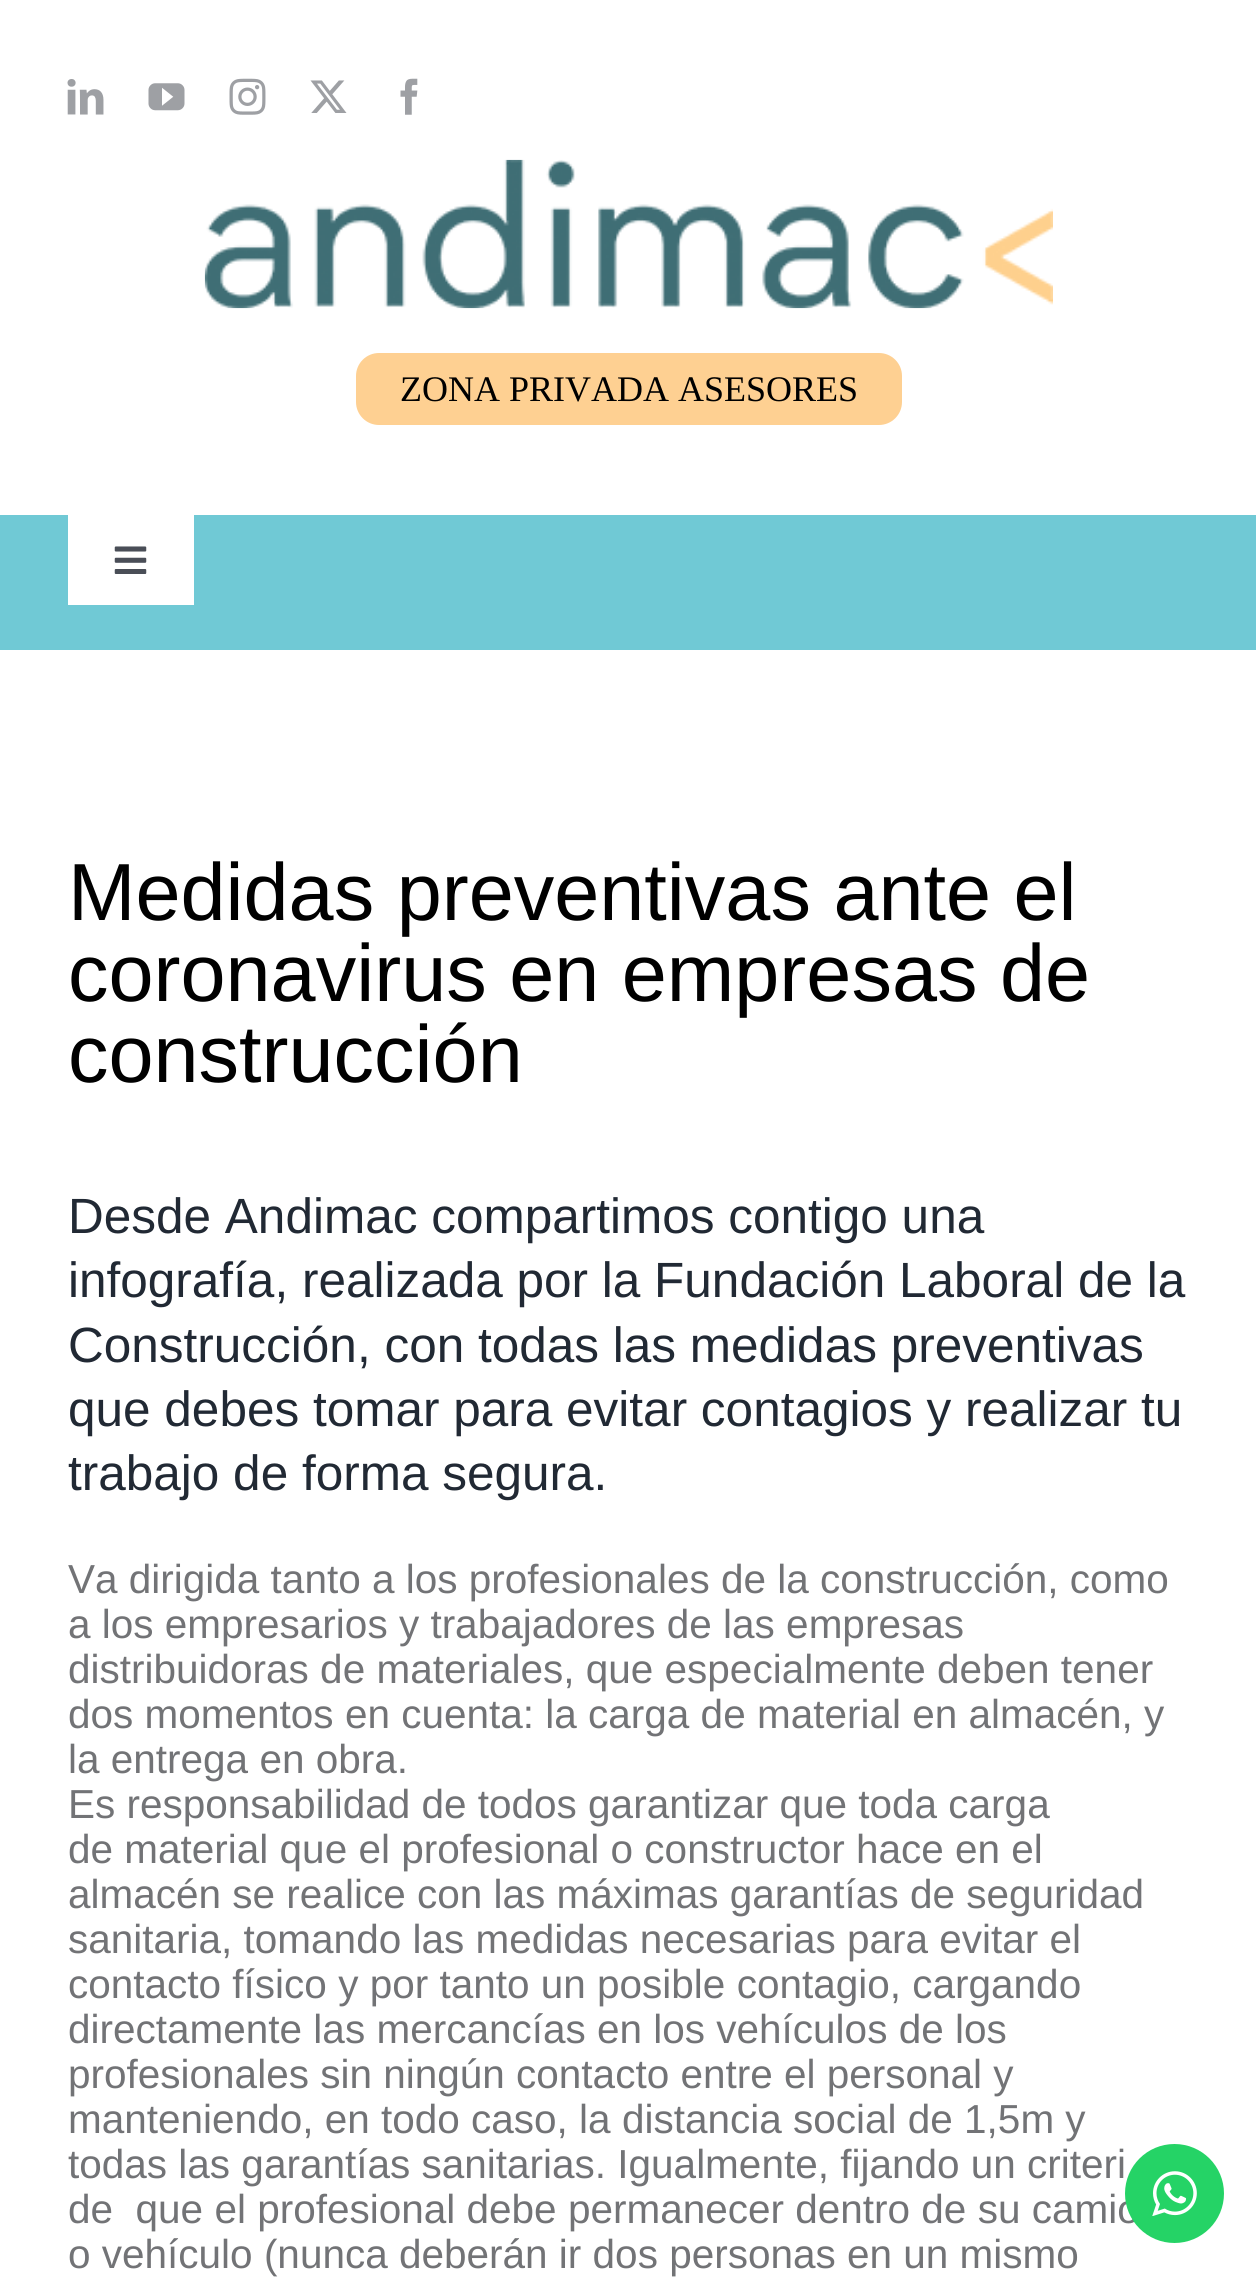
#include <cairo.h>
#include <math.h>
#include <stddef.h>

typedef struct { double x, y; const char *s; } line_t;

static void ink(cairo_t *ctx, unsigned color) {
    cairo_set_source_rgb(ctx, (color >> 16) / 255.0, (color >> 8 & 255) / 255.0, (color & 255) / 255.0);
}

static void round_path(cairo_t *ctx, double x, double y, double w, double h, double r) {
    cairo_new_sub_path(ctx);
    cairo_arc(ctx, x + w - r, y + h - r, r, 0, M_PI / 2);
    cairo_arc(ctx, x + r, y + h - r, r, M_PI / 2, M_PI);
    cairo_arc(ctx, x + r, y + r, r, M_PI, 1.5 * M_PI);
    cairo_arc(ctx, x + w - r, y + r, r, 1.5 * M_PI, 2 * M_PI);
    cairo_close_path(ctx);
}

static void paste(cairo_t *ctx, const char *path, double x, double y, double w, double h) {
    cairo_surface_t *image = cairo_image_surface_create_from_png(path);
    cairo_save(ctx);
    cairo_set_source_surface(ctx, image, x, y);
    cairo_rectangle(ctx, x, y, w, h);
    cairo_fill(ctx);
    cairo_restore(ctx);
    cairo_surface_destroy(image);
}

int main(void) {
    cairo_surface_t *surface = cairo_image_surface_create(CAIRO_FORMAT_RGB24, 1256, 2277);
    cairo_t *ctx = cairo_create(surface);
    cairo_font_options_t *options = cairo_font_options_create();
    cairo_font_options_set_hint_metrics(options, CAIRO_HINT_METRICS_OFF);
    cairo_font_options_set_hint_style(options, CAIRO_HINT_STYLE_NONE);
    cairo_set_font_options(ctx, options);
    cairo_set_miter_limit(ctx, 4);
    ink(ctx, 0xFFFFFF);
    cairo_paint(ctx);
    paste(ctx, "media/1.png", 67, 79, 37, 36);
    paste(ctx, "media/2.png", 148, 83, 37, 28);
    paste(ctx, "media/3.png", 229, 78, 37, 37);
    paste(ctx, "media/4.png", 310, 80, 37, 33);
    paste(ctx, "media/5.png", 400, 78, 18, 37);
    paste(ctx, "media/6.png", 204, 159, 849, 150);
    ink(ctx, 0xFED092);
    round_path(ctx, 356, 353, 546, 72, 23);
    cairo_fill(ctx);
    cairo_select_font_face(ctx, "Liberation Serif", CAIRO_FONT_SLANT_NORMAL, CAIRO_FONT_WEIGHT_NORMAL);
    cairo_set_font_size(ctx, 36);
    ink(ctx, 0x000000);
    cairo_move_to(ctx, 400, 401);
    cairo_show_text(ctx, "ZONA PRIVADA ASESORES");
    ink(ctx, 0x70C9D5);
    cairo_rectangle(ctx, 0, 515, 1256, 135);
    cairo_fill(ctx);
    ink(ctx, 0xFFFFFF);
    cairo_rectangle(ctx, 68, 515, 126, 90);
    cairo_fill(ctx);
    paste(ctx, "media/7.png", 114, 546, 33, 28);
    cairo_select_font_face(ctx, "Liberation Sans", CAIRO_FONT_SLANT_NORMAL, CAIRO_FONT_WEIGHT_NORMAL);
    cairo_set_font_size(ctx, 81);
    ink(ctx, 0x000000);
    {
        static const line_t items[] = {
            {68, 920, "Medidas preventivas ante el"},
            {68, 1001, "coronavirus en empresas de"},
            {68, 1082, "construcción"},
        };
        for (size_t i = 0; i < sizeof items / sizeof *items; i++) {
            cairo_move_to(ctx, items[i].x, items[i].y);
            cairo_show_text(ctx, items[i].s);
        }
    }
    cairo_set_font_size(ctx, 49.5);
    ink(ctx, 0x212934);
    {
        static const line_t items[] = {
            {68, 1233, "Desde Andimac compartimos contigo una"},
            {68, 1297, "infografía, realizada por la Fundación Laboral de la"},
            {68, 1362, "Construcción, con todas las medidas preventivas"},
            {68, 1426, "que debes tomar para evitar contagios y realizar tu"},
            {68, 1490, "trabajo de forma segura."},
        };
        for (size_t i = 0; i < sizeof items / sizeof *items; i++) {
            cairo_move_to(ctx, items[i].x, items[i].y);
            cairo_show_text(ctx, items[i].s);
        }
    }
    cairo_set_font_size(ctx, 40.5);
    ink(ctx, 0x727376);
    {
        static const line_t items[] = {
            {68, 1593, "Va dirigida tanto a los profesionales de la construcción, como"},
            {68, 1638, "a los empresarios y trabajadores de las empresas"},
            {68, 1683, "distribuidoras de materiales, que especialmente deben tener"},
            {68, 1728, "dos momentos en cuenta: la carga de material en almacén, y"},
            {68, 1773, "la entrega en obra."},
            {68, 1818, "Es responsabilidad de todos garantizar que toda carga"},
            {68, 1863, "de material que el profesional o constructor hace en el"},
            {68, 1908, "almacén se realice con las máximas garantías de seguridad"},
            {68, 1953, "sanitaria, tomando las medidas necesarias para evitar el"},
            {68, 1998, "contacto físico y por tanto un posible contagio, cargando"},
            {68, 2043, "directamente las mercancías en los vehículos de los"},
            {68, 2088, "profesionales sin ningún contacto entre el personal y"},
            {68, 2133, "manteniendo, en todo caso, la distancia social de 1,5m y"},
            {68, 2178, "todas las garantías sanitarias. Igualmente, fijando un criteri"},
            {68, 2223, "de  que el profesional debe permanecer dentro de su camió"},
            {68, 2268, "o vehículo (nunca deberán ir dos personas en un mismo"},
        };
        for (size_t i = 0; i < sizeof items / sizeof *items; i++) {
            cairo_move_to(ctx, items[i].x, items[i].y);
            cairo_show_text(ctx, items[i].s);
        }
    }
    ink(ctx, 0x25D366);
    cairo_new_path(ctx);
    cairo_arc(ctx, 1174.5, 2193.5, 49.5, 0, 2 * M_PI);
    cairo_fill(ctx);
    paste(ctx, "media/8.png", 1152, 2171, 45, 45);
    cairo_surface_write_to_png(surface, "image.png");
    cairo_font_options_destroy(options);
    cairo_destroy(ctx);
    cairo_surface_destroy(surface);
    return 0;
}
